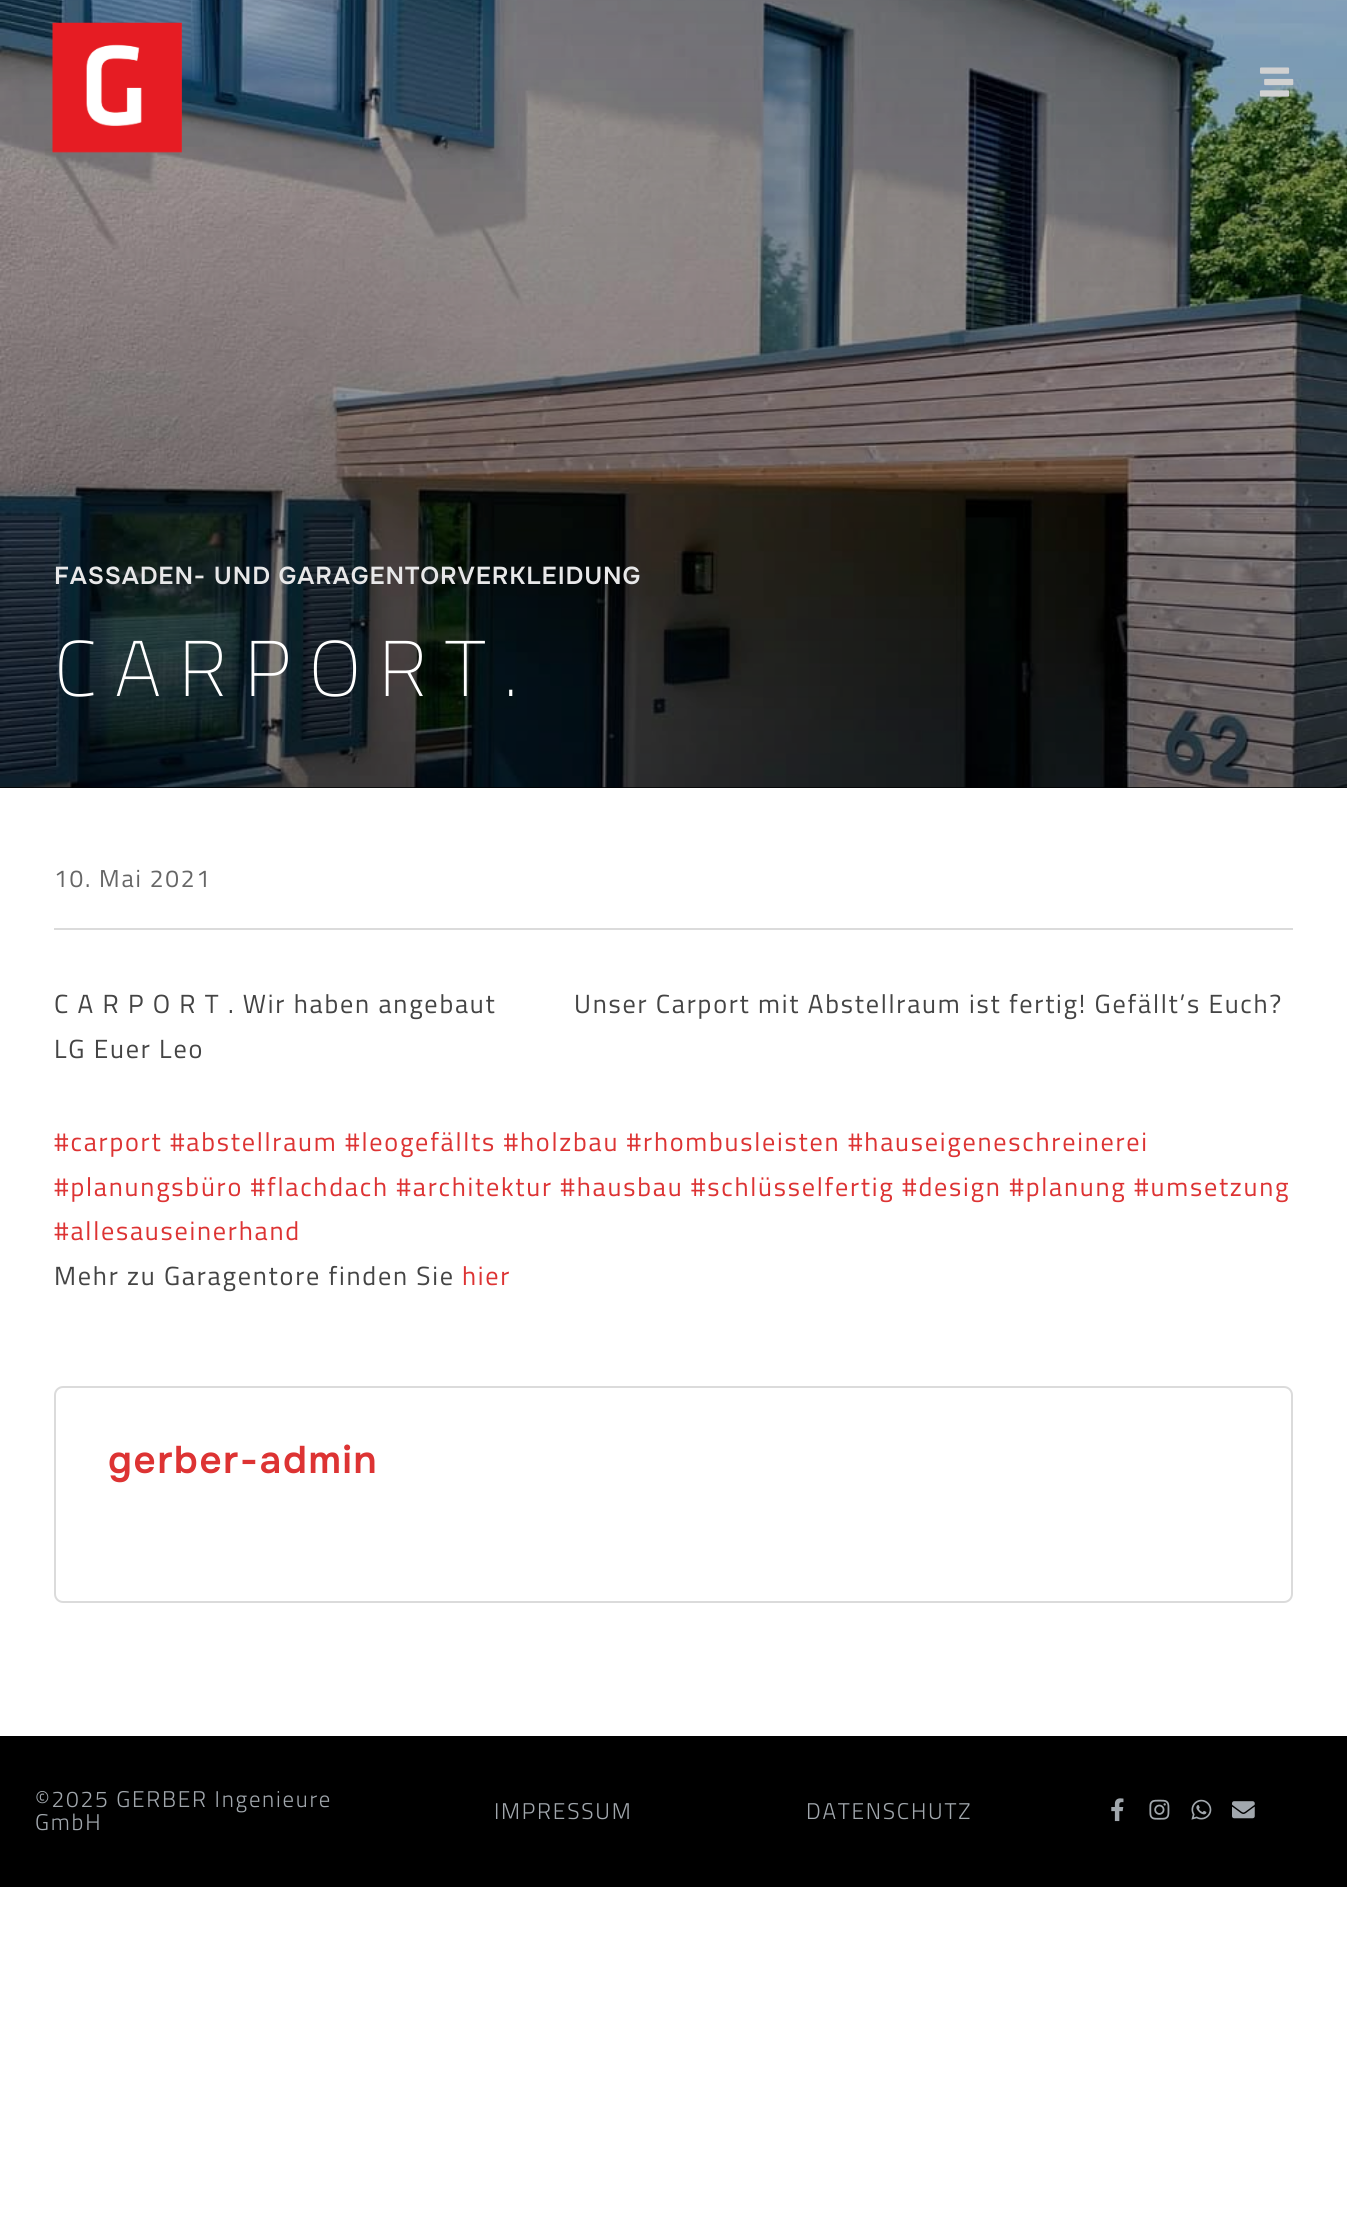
#include <cairo.h>
#include <math.h>
#include <stddef.h>

typedef struct { double x, y; const char *s; } line_t;

static void ink(cairo_t *ctx, unsigned color) {
    cairo_set_source_rgb(ctx, (color >> 16) / 255.0, (color >> 8 & 255) / 255.0, (color & 255) / 255.0);
}

static void write_spaced(cairo_t *ctx, double x, double y, const char *s, double letter, double word) {
    cairo_move_to(ctx, x, y);
    while (*s) {
        char ch[5] = {0};
        int n = 0;
        do ch[n++] = *s++; while ((*s & 0xC0) == 0x80);
        cairo_show_text(ctx, ch);
        cairo_rel_move_to(ctx, letter + word * (*ch == ' '), 0);
    }
}

static void round_path(cairo_t *ctx, double x, double y, double w, double h, double r) {
    cairo_new_sub_path(ctx);
    cairo_arc(ctx, x + w - r, y + h - r, r, 0, M_PI / 2);
    cairo_arc(ctx, x + r, y + h - r, r, M_PI / 2, M_PI);
    cairo_arc(ctx, x + r, y + r, r, M_PI, 1.5 * M_PI);
    cairo_arc(ctx, x + w - r, y + r, r, 1.5 * M_PI, 2 * M_PI);
    cairo_close_path(ctx);
}

static void paste(cairo_t *ctx, const char *path, double x, double y, double w, double h) {
    cairo_surface_t *image = cairo_image_surface_create_from_png(path);
    cairo_save(ctx);
    cairo_set_source_surface(ctx, image, x, y);
    cairo_rectangle(ctx, x, y, w, h);
    cairo_fill(ctx);
    cairo_restore(ctx);
    cairo_surface_destroy(image);
}

int main(void) {
    cairo_surface_t *surface = cairo_image_surface_create(CAIRO_FORMAT_RGB24, 1347, 2224);
    cairo_t *ctx = cairo_create(surface);
    cairo_font_options_t *options = cairo_font_options_create();
    cairo_font_options_set_hint_metrics(options, CAIRO_HINT_METRICS_OFF);
    cairo_font_options_set_hint_style(options, CAIRO_HINT_STYLE_NONE);
    cairo_set_font_options(ctx, options);
    cairo_set_miter_limit(ctx, 4);
    cairo_pattern_t *gradient;
    ink(ctx, 0xFFFFFF);
    cairo_paint(ctx);
    ink(ctx, 0x000000);
    cairo_rectangle(ctx, 0, 0, 1347, 788);
    cairo_fill(ctx);
    paste(ctx, "media/3.png", 0, 0, 1347, 788);
    gradient = cairo_pattern_create_linear(674, 0, 674, 788);
    cairo_pattern_add_color_stop_rgba(gradient, 0, 0, 0, 0, 0.08);
    cairo_pattern_add_color_stop_rgba(gradient, 1, 0, 0, 0, 0.4);
    cairo_set_source(ctx, gradient);
    cairo_pattern_destroy(gradient);
    cairo_rectangle(ctx, 0, 0, 1347, 788);
    cairo_fill(ctx);
    paste(ctx, "media/1.png", 52, 22, 130, 131);
    paste(ctx, "media/2.png", 1260, 67, 34, 30);
    cairo_select_font_face(ctx, "Onest SemiBold", CAIRO_FONT_SLANT_NORMAL, CAIRO_FONT_WEIGHT_NORMAL);
    cairo_set_font_size(ctx, 24.5);
    ink(ctx, 0xE8E8E9);
    write_spaced(ctx, 54, 584, "FASSADEN- UND GARAGENTORVERKLEIDUNG", 0.9, 0);
    cairo_select_font_face(ctx, "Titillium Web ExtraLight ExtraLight", CAIRO_FONT_SLANT_NORMAL, CAIRO_FONT_WEIGHT_NORMAL);
    cairo_set_font_size(ctx, 78.75);
    ink(ctx, 0xFFFFFF);
    write_spaced(ctx, 54, 696, "CARPORT.", 17.5, 0);
    ink(ctx, 0xDBDBDB);
    cairo_rectangle(ctx, 54, 928, 1239, 2);
    cairo_fill(ctx);
    cairo_select_font_face(ctx, "Titillium Web", CAIRO_FONT_SLANT_NORMAL, CAIRO_FONT_WEIGHT_NORMAL);
    cairo_set_font_size(ctx, 24.5);
    ink(ctx, 0x666666);
    write_spaced(ctx, 54, 887, "10. Mai 2021", 1.75, 0);
    cairo_set_font_size(ctx, 26.25);
    ink(ctx, 0x444444);
    {
        static const line_t items[] = {
            {54, 1013, "C A R P O R T . Wir haben angebaut"},
            {574, 1013, "Unser Carport mit Abstellraum ist fertig! Gefällt’s Euch?"},
            {54, 1058, "LG Euer Leo"},
        };
        for (size_t i = 0; i < sizeof items / sizeof *items; i++) {
            write_spaced(ctx, items[i].x, items[i].y, items[i].s, 1.75, 0);
        }
    }
    ink(ctx, 0xDD3333);
    {
        static const line_t items[] = {
            {54, 1151, "#carport #abstellraum #leogefällts #holzbau #rhombusleisten #hauseigeneschreinerei"},
            {54, 1196, "#planungsbüro #flachdach #architektur #hausbau #schlüsselfertig #design #planung #umsetzung"},
            {54, 1240, "#allesauseinerhand"},
        };
        for (size_t i = 0; i < sizeof items / sizeof *items; i++) {
            write_spaced(ctx, items[i].x, items[i].y, items[i].s, 1.75, 0);
        }
    }
    ink(ctx, 0x444444);
    write_spaced(ctx, 54, 1285, "Mehr zu Garagentore finden Sie", 1.75, 0);
    ink(ctx, 0xDD3333);
    write_spaced(ctx, 462, 1285, "hier", 1.75, 0);
    round_path(ctx, 55, 1387, 1237, 215, 8);
    ink(ctx, 0xDBDBDB);
    cairo_stroke(ctx);
    cairo_select_font_face(ctx, "Onest SemiBold", CAIRO_FONT_SLANT_NORMAL, CAIRO_FONT_WEIGHT_NORMAL);
    cairo_set_font_size(ctx, 38.5);
    ink(ctx, 0xDD3333);
    write_spaced(ctx, 108, 1473, "gerber-admin", 1.75, 0);
    ink(ctx, 0x000000);
    cairo_rectangle(ctx, 0, 1736, 1347, 151);
    cairo_fill(ctx);
    cairo_select_font_face(ctx, "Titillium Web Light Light", CAIRO_FONT_SLANT_NORMAL, CAIRO_FONT_WEIGHT_NORMAL);
    cairo_set_font_size(ctx, 22.75);
    ink(ctx, 0xA1A7AD);
    {
        static const line_t items[] = {
            {35, 1807, "©2025 GERBER Ingenieure"},
            {35, 1830, "GmbH"},
            {494, 1819, "IMPRESSUM"},
            {806, 1819, "DATENSCHUTZ"},
        };
        for (size_t i = 0; i < sizeof items / sizeof *items; i++) {
            write_spaced(ctx, items[i].x, items[i].y, items[i].s, 1.75, 0);
        }
    }
    paste(ctx, "media/4.png", 1111, 1798, 13, 24);
    paste(ctx, "media/5.png", 1149, 1799, 21, 21);
    paste(ctx, "media/6.png", 1191, 1799, 21, 21);
    paste(ctx, "media/7.png", 1232, 1801, 23, 18);
    cairo_surface_write_to_png(surface, "image.png");
    cairo_font_options_destroy(options);
    cairo_destroy(ctx);
    cairo_surface_destroy(surface);
    return 0;
}
